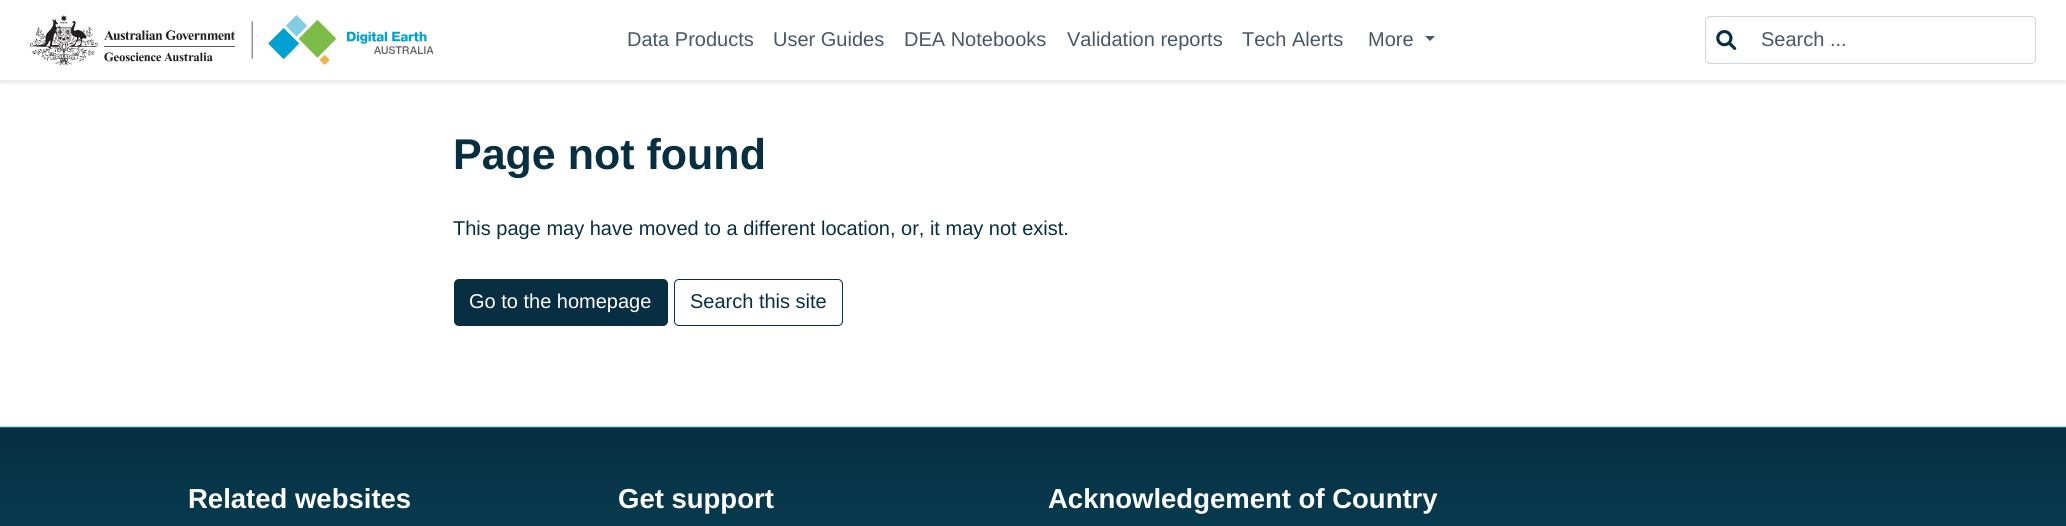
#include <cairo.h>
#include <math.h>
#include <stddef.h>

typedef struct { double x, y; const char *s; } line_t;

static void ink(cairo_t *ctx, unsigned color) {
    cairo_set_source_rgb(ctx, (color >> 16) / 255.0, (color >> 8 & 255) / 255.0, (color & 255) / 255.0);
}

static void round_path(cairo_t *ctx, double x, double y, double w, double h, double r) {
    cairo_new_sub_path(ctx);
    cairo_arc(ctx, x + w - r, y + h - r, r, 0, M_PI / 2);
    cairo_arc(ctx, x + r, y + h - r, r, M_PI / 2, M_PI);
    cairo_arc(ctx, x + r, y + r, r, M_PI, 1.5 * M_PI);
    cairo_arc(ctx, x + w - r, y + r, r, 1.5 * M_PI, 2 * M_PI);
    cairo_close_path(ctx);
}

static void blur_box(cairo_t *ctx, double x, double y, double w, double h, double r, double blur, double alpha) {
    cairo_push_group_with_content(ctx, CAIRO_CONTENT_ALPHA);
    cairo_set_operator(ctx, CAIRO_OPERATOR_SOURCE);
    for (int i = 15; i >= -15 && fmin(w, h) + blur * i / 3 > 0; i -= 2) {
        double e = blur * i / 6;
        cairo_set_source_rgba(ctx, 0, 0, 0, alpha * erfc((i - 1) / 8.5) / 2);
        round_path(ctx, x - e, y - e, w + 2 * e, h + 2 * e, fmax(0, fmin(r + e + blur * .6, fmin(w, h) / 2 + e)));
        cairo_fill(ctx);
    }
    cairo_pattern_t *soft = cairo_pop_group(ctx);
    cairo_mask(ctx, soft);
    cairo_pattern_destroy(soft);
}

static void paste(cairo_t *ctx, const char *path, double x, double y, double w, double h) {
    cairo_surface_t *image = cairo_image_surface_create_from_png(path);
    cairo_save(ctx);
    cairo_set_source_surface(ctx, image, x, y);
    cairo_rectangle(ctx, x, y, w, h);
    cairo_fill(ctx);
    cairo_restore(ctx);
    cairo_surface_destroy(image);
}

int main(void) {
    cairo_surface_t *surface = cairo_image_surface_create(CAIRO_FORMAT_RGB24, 2066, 526);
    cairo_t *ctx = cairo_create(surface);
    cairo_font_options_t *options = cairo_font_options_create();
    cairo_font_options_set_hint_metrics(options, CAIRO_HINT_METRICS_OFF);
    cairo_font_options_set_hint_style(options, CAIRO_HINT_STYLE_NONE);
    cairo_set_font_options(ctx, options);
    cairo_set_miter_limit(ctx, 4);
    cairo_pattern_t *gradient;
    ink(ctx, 0xFFFFFF);
    cairo_paint(ctx);
    cairo_save(ctx);
    cairo_rectangle(ctx, 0, 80, 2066, 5);
    cairo_clip(ctx);
    ink(ctx, 0x000000);
    blur_box(ctx, 0, 3, 2066, 80, 0, 2.5, 0.1);
    cairo_restore(ctx);
    paste(ctx, "media/1.png", 30, 15, 404, 50);
    cairo_select_font_face(ctx, "Liberation Sans", CAIRO_FONT_SLANT_NORMAL, CAIRO_FONT_WEIGHT_NORMAL);
    cairo_set_font_size(ctx, 20);
    ink(ctx, 0x48566B);
    {
        static const line_t items[] = {
            {627, 46, "Data Products"},
            {773, 46, "User Guides"},
            {904, 46, "DEA Notebooks"},
            {1067, 46, "Validation reports"},
            {1242, 46, "Tech Alerts"},
            {1368, 46, "More"},
        };
        for (size_t i = 0; i < sizeof items / sizeof *items; i++) {
            cairo_move_to(ctx, items[i].x, items[i].y);
            cairo_show_text(ctx, items[i].s);
        }
    }
    cairo_new_path(ctx);
    cairo_move_to(ctx, 1425, 36);
    cairo_line_to(ctx, 1435, 36);
    cairo_line_to(ctx, 1430, 41);
    cairo_close_path(ctx);
    cairo_fill(ctx);
    round_path(ctx, 1705.5, 16.5, 330, 47, 4.5);
    ink(ctx, 0xD1D5DA);
    cairo_set_line_width(ctx, 1);
    cairo_stroke(ctx);
    paste(ctx, "media/2.png", 1716, 30, 21, 20);
    ink(ctx, 0x48566B);
    cairo_move_to(ctx, 1761, 46);
    cairo_show_text(ctx, "Search ...");
    cairo_select_font_face(ctx, "Liberation Sans", CAIRO_FONT_SLANT_NORMAL, CAIRO_FONT_WEIGHT_BOLD);
    cairo_set_font_size(ctx, 43);
    ink(ctx, 0x082E41);
    cairo_move_to(ctx, 453, 169);
    cairo_show_text(ctx, "Page not found");
    cairo_select_font_face(ctx, "Liberation Sans", CAIRO_FONT_SLANT_NORMAL, CAIRO_FONT_WEIGHT_NORMAL);
    cairo_set_font_size(ctx, 20);
    cairo_move_to(ctx, 453, 235);
    cairo_show_text(ctx, "This page may have moved to a different location, or, it may not exist.");
    round_path(ctx, 454.5, 279.5, 213, 46, 4.5);
    cairo_fill_preserve(ctx);
    cairo_stroke(ctx);
    ink(ctx, 0xFFFFFF);
    cairo_move_to(ctx, 469, 308);
    cairo_show_text(ctx, "Go to the homepage");
    round_path(ctx, 674.5, 279.5, 168, 46, 4.5);
    ink(ctx, 0x082E41);
    cairo_stroke(ctx);
    cairo_move_to(ctx, 690, 308);
    cairo_show_text(ctx, "Search this site");
    gradient = cairo_pattern_create_linear(1033, 428, 1033, -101);
    cairo_pattern_add_color_stop_rgba(gradient, 0, 0, 0.443, 0.545, 1);
    cairo_pattern_add_color_stop_rgba(gradient, 1, 0.031, 0.18, 0.255, 1);
    cairo_set_source(ctx, gradient);
    cairo_pattern_destroy(gradient);
    cairo_rectangle(ctx, 0, 427, 2066, 1);
    cairo_fill(ctx);
    gradient = cairo_pattern_create_linear(1033, 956, 1033, 427);
    cairo_pattern_add_color_stop_rgba(gradient, 0, 0, 0.443, 0.545, 1);
    cairo_pattern_add_color_stop_rgba(gradient, 1, 0.031, 0.18, 0.255, 1);
    cairo_set_source(ctx, gradient);
    cairo_pattern_destroy(gradient);
    cairo_rectangle(ctx, 0, 428, 2066, 98);
    cairo_fill(ctx);
    ink(ctx, 0xD1D5DA);
    cairo_rectangle(ctx, 0, 426, 2066, 1);
    cairo_fill(ctx);
    cairo_select_font_face(ctx, "Liberation Sans", CAIRO_FONT_SLANT_NORMAL, CAIRO_FONT_WEIGHT_BOLD);
    cairo_set_font_size(ctx, 27.5);
    ink(ctx, 0xFFFFFF);
    {
        static const line_t items[] = {
            {188, 508, "Related websites"},
            {618, 508, "Get support"},
            {1048, 508, "Acknowledgement of Country"},
        };
        for (size_t i = 0; i < sizeof items / sizeof *items; i++) {
            cairo_move_to(ctx, items[i].x, items[i].y);
            cairo_show_text(ctx, items[i].s);
        }
    }
    cairo_surface_write_to_png(surface, "image.png");
    cairo_font_options_destroy(options);
    cairo_destroy(ctx);
    cairo_surface_destroy(surface);
    return 0;
}
